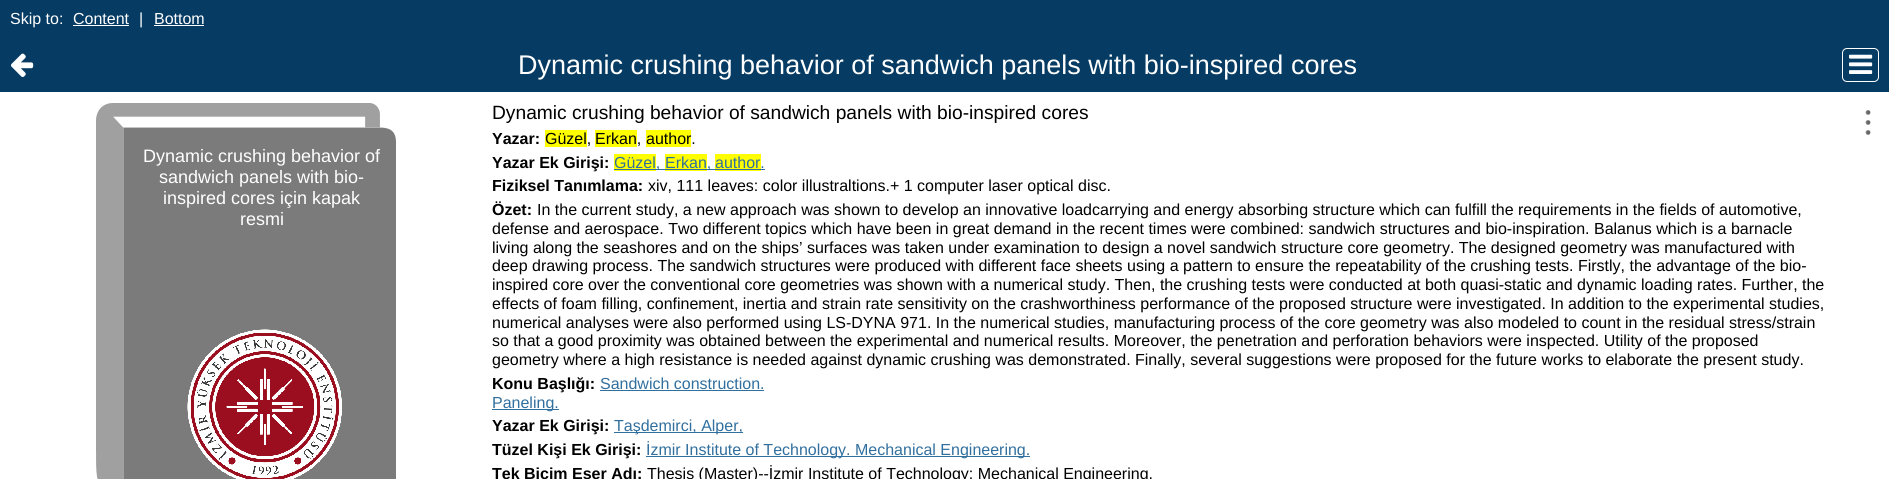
#include <cairo.h>
#include <math.h>
#include <stddef.h>

typedef struct { double x, y; const char *s; } line_t;

static void ink(cairo_t *ctx, unsigned color) {
    cairo_set_source_rgb(ctx, (color >> 16) / 255.0, (color >> 8 & 255) / 255.0, (color & 255) / 255.0);
}

static void round_path(cairo_t *ctx, double x, double y, double w, double h, double r) {
    cairo_new_sub_path(ctx);
    cairo_arc(ctx, x + w - r, y + h - r, r, 0, M_PI / 2);
    cairo_arc(ctx, x + r, y + h - r, r, M_PI / 2, M_PI);
    cairo_arc(ctx, x + r, y + r, r, M_PI, 1.5 * M_PI);
    cairo_arc(ctx, x + w - r, y + r, r, 1.5 * M_PI, 2 * M_PI);
    cairo_close_path(ctx);
}

static void paste(cairo_t *ctx, const char *path, double x, double y, double w, double h) {
    cairo_surface_t *image = cairo_image_surface_create_from_png(path);
    cairo_save(ctx);
    cairo_set_source_surface(ctx, image, x, y);
    cairo_rectangle(ctx, x, y, w, h);
    cairo_fill(ctx);
    cairo_restore(ctx);
    cairo_surface_destroy(image);
}

int main(void) {
    cairo_surface_t *surface = cairo_image_surface_create(CAIRO_FORMAT_RGB24, 1889, 479);
    cairo_t *ctx = cairo_create(surface);
    cairo_font_options_t *options = cairo_font_options_create();
    cairo_font_options_set_hint_metrics(options, CAIRO_HINT_METRICS_OFF);
    cairo_font_options_set_hint_style(options, CAIRO_HINT_STYLE_NONE);
    cairo_set_font_options(ctx, options);
    cairo_set_miter_limit(ctx, 4);
    ink(ctx, 0x063B63);
    cairo_paint(ctx);
    cairo_select_font_face(ctx, "Liberation Sans", CAIRO_FONT_SLANT_NORMAL, CAIRO_FONT_WEIGHT_NORMAL);
    cairo_set_font_size(ctx, 16);
    ink(ctx, 0xFFFFFF);
    cairo_move_to(ctx, 10, 24);
    cairo_show_text(ctx, "Skip to:");
    cairo_move_to(ctx, 73, 24);
    cairo_show_text(ctx, "Content");
    cairo_rectangle(ctx, 73, 25, 56, 1);
    cairo_fill(ctx);
    cairo_move_to(ctx, 139, 24);
    cairo_show_text(ctx, "|");
    cairo_move_to(ctx, 154, 24);
    cairo_show_text(ctx, "Bottom");
    cairo_rectangle(ctx, 154, 25, 50, 1);
    cairo_fill(ctx);
    paste(ctx, "media/1.png", 11, 53, 23, 24);
    cairo_set_font_size(ctx, 27);
    cairo_move_to(ctx, 518, 74);
    cairo_show_text(ctx, "Dynamic crushing behavior of sandwich panels with bio-inspired cores");
    round_path(ctx, 1842.5, 48.5, 36, 33, 4.5);
    cairo_set_line_width(ctx, 1);
    cairo_stroke(ctx);
    paste(ctx, "media/2.png", 1849, 54, 24, 20);
    cairo_rectangle(ctx, 0, 92, 1889, 387);
    cairo_fill(ctx);
    paste(ctx, "media/3.png", 96, 103, 300, 376);
    cairo_set_font_size(ctx, 18);
    {
        static const line_t items[] = {
            {143, 162, "Dynamic crushing behavior of"},
            {159, 183, "sandwich panels with bio-"},
            {163, 204, "inspired cores için kapak"},
            {240, 225, "resmi"},
        };
        for (size_t i = 0; i < sizeof items / sizeof *items; i++) {
            cairo_move_to(ctx, items[i].x, items[i].y);
            cairo_show_text(ctx, items[i].s);
        }
    }
    cairo_set_font_size(ctx, 19.2);
    ink(ctx, 0x000000);
    cairo_move_to(ctx, 492, 119);
    cairo_show_text(ctx, "Dynamic crushing behavior of sandwich panels with bio-inspired cores");
    cairo_select_font_face(ctx, "Liberation Sans", CAIRO_FONT_SLANT_NORMAL, CAIRO_FONT_WEIGHT_BOLD);
    cairo_set_font_size(ctx, 16);
    cairo_move_to(ctx, 492, 144);
    cairo_show_text(ctx, "Yazar:");
    ink(ctx, 0xFFFF00);
    cairo_rectangle(ctx, 545, 130, 42, 17);
    cairo_fill(ctx);
    cairo_select_font_face(ctx, "Liberation Sans", CAIRO_FONT_SLANT_NORMAL, CAIRO_FONT_WEIGHT_NORMAL);
    ink(ctx, 0x000000);
    cairo_move_to(ctx, 545, 144);
    cairo_show_text(ctx, "Güzel,");
    ink(ctx, 0xFFFF00);
    cairo_rectangle(ctx, 595, 130, 42, 17);
    cairo_fill(ctx);
    ink(ctx, 0x000000);
    cairo_move_to(ctx, 595, 144);
    cairo_show_text(ctx, "Erkan,");
    ink(ctx, 0xFFFF00);
    cairo_rectangle(ctx, 646, 130, 45, 17);
    cairo_fill(ctx);
    ink(ctx, 0x000000);
    cairo_move_to(ctx, 646, 144);
    cairo_show_text(ctx, "author.");
    cairo_select_font_face(ctx, "Liberation Sans", CAIRO_FONT_SLANT_NORMAL, CAIRO_FONT_WEIGHT_BOLD);
    cairo_move_to(ctx, 492, 168);
    cairo_show_text(ctx, "Yazar Ek Girişi:");
    ink(ctx, 0xFFFF00);
    cairo_rectangle(ctx, 614, 154, 42, 17);
    cairo_fill(ctx);
    ink(ctx, 0x316F9E);
    cairo_rectangle(ctx, 614, 169, 51, 1);
    cairo_fill(ctx);
    cairo_select_font_face(ctx, "Liberation Sans", CAIRO_FONT_SLANT_NORMAL, CAIRO_FONT_WEIGHT_NORMAL);
    cairo_move_to(ctx, 614, 168);
    cairo_show_text(ctx, "Güzel,");
    ink(ctx, 0xFFFF00);
    cairo_rectangle(ctx, 665, 154, 42, 17);
    cairo_fill(ctx);
    ink(ctx, 0x316F9E);
    cairo_rectangle(ctx, 665, 169, 50, 1);
    cairo_fill(ctx);
    cairo_move_to(ctx, 665, 168);
    cairo_show_text(ctx, "Erkan,");
    ink(ctx, 0xFFFF00);
    cairo_rectangle(ctx, 715, 154, 46, 17);
    cairo_fill(ctx);
    ink(ctx, 0x316F9E);
    cairo_move_to(ctx, 715, 168);
    cairo_show_text(ctx, "author.");
    cairo_rectangle(ctx, 715, 169, 50, 1);
    cairo_fill(ctx);
    cairo_select_font_face(ctx, "Liberation Sans", CAIRO_FONT_SLANT_NORMAL, CAIRO_FONT_WEIGHT_BOLD);
    ink(ctx, 0x000000);
    cairo_move_to(ctx, 492, 191);
    cairo_show_text(ctx, "Fiziksel Tanımlama:");
    cairo_select_font_face(ctx, "Liberation Sans", CAIRO_FONT_SLANT_NORMAL, CAIRO_FONT_WEIGHT_NORMAL);
    cairo_move_to(ctx, 648, 191);
    cairo_show_text(ctx, "xiv, 111 leaves: color illustraltions.+ 1 computer laser optical disc.");
    cairo_select_font_face(ctx, "Liberation Sans", CAIRO_FONT_SLANT_NORMAL, CAIRO_FONT_WEIGHT_BOLD);
    cairo_move_to(ctx, 492, 215);
    cairo_show_text(ctx, "Özet:");
    cairo_select_font_face(ctx, "Liberation Sans", CAIRO_FONT_SLANT_NORMAL, CAIRO_FONT_WEIGHT_NORMAL);
    {
        static const line_t items[] = {
            {537, 215, "In the current study, a new approach was shown to develop an innovative loadcarrying and energy absorbing structure which can fulfill the requirements in the fields of automotive,"},
            {492, 234, "defense and aerospace. Two different topics which have been in great demand in the recent times were combined: sandwich structures and bio-inspiration. Balanus which is a barnacle"},
            {492, 253, "living along the seashores and on the ships’ surfaces was taken under examination to design a novel sandwich structure core geometry. The designed geometry was manufactured with"},
            {492, 271, "deep drawing process. The sandwich structures were produced with different face sheets using a pattern to ensure the repeatability of the crushing tests. Firstly, the advantage of the bio-"},
            {492, 290, "inspired core over the conventional core geometries was shown with a numerical study. Then, the crushing tests were conducted at both quasi-static and dynamic loading rates. Further, the"},
            {492, 309, "effects of foam filling, confinement, inertia and strain rate sensitivity on the crashworthiness performance of the proposed structure were investigated. In addition to the experimental studies,"},
            {492, 328, "numerical analyses were also performed using LS-DYNA 971. In the numerical studies, manufacturing process of the core geometry was also modeled to count in the residual stress/strain"},
            {492, 346, "so that a good proximity was obtained between the experimental and numerical results. Moreover, the penetration and perforation behaviors were inspected. Utility of the proposed"},
            {492, 365, "geometry where a high resistance is needed against dynamic crushing was demonstrated. Finally, several suggestions were proposed for the future works to elaborate the present study."},
        };
        for (size_t i = 0; i < sizeof items / sizeof *items; i++) {
            cairo_move_to(ctx, items[i].x, items[i].y);
            cairo_show_text(ctx, items[i].s);
        }
    }
    cairo_select_font_face(ctx, "Liberation Sans", CAIRO_FONT_SLANT_NORMAL, CAIRO_FONT_WEIGHT_BOLD);
    cairo_move_to(ctx, 492, 389);
    cairo_show_text(ctx, "Konu Başlığı:");
    cairo_select_font_face(ctx, "Liberation Sans", CAIRO_FONT_SLANT_NORMAL, CAIRO_FONT_WEIGHT_NORMAL);
    ink(ctx, 0x316F9E);
    cairo_move_to(ctx, 600, 389);
    cairo_show_text(ctx, "Sandwich construction.");
    cairo_rectangle(ctx, 600, 390, 164, 1);
    cairo_fill(ctx);
    cairo_rectangle(ctx, 492, 409, 67, 1);
    cairo_fill(ctx);
    cairo_move_to(ctx, 492, 408);
    cairo_show_text(ctx, "Paneling.");
    cairo_select_font_face(ctx, "Liberation Sans", CAIRO_FONT_SLANT_NORMAL, CAIRO_FONT_WEIGHT_BOLD);
    ink(ctx, 0x000000);
    cairo_move_to(ctx, 492, 431);
    cairo_show_text(ctx, "Yazar Ek Girişi:");
    ink(ctx, 0x316F9E);
    cairo_rectangle(ctx, 614, 432, 129, 1);
    cairo_fill(ctx);
    cairo_select_font_face(ctx, "Liberation Sans", CAIRO_FONT_SLANT_NORMAL, CAIRO_FONT_WEIGHT_NORMAL);
    cairo_move_to(ctx, 614, 431);
    cairo_show_text(ctx, "Taşdemirci, Alper,");
    cairo_select_font_face(ctx, "Liberation Sans", CAIRO_FONT_SLANT_NORMAL, CAIRO_FONT_WEIGHT_BOLD);
    ink(ctx, 0x000000);
    cairo_move_to(ctx, 492, 455);
    cairo_show_text(ctx, "Tüzel Kişi Ek Girişi:");
    ink(ctx, 0x316F9E);
    cairo_rectangle(ctx, 646, 456, 384, 1);
    cairo_fill(ctx);
    cairo_select_font_face(ctx, "Liberation Sans", CAIRO_FONT_SLANT_NORMAL, CAIRO_FONT_WEIGHT_NORMAL);
    cairo_move_to(ctx, 646, 455);
    cairo_show_text(ctx, "İzmir Institute of Technology. Mechanical Engineering.");
    cairo_select_font_face(ctx, "Liberation Sans", CAIRO_FONT_SLANT_NORMAL, CAIRO_FONT_WEIGHT_BOLD);
    ink(ctx, 0x000000);
    cairo_move_to(ctx, 492, 479);
    cairo_show_text(ctx, "Tek Biçim Eser Adı:");
    cairo_select_font_face(ctx, "Liberation Sans", CAIRO_FONT_SLANT_NORMAL, CAIRO_FONT_WEIGHT_NORMAL);
    cairo_move_to(ctx, 647, 479);
    cairo_show_text(ctx, "Thesis (Master)--İzmir Institute of Technology: Mechanical Engineering.");
    paste(ctx, "media/4.png", 1865, 110, 6, 25);
    cairo_surface_write_to_png(surface, "image.png");
    cairo_font_options_destroy(options);
    cairo_destroy(ctx);
    cairo_surface_destroy(surface);
    return 0;
}
